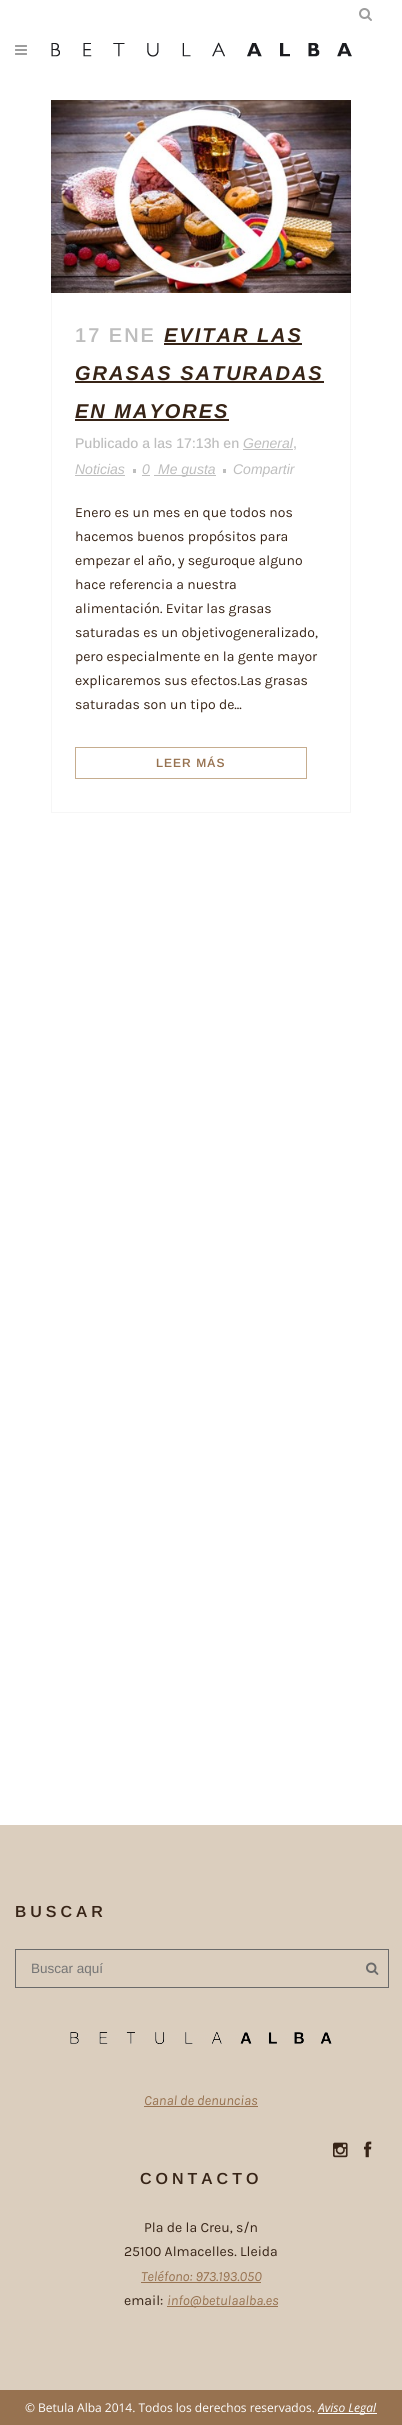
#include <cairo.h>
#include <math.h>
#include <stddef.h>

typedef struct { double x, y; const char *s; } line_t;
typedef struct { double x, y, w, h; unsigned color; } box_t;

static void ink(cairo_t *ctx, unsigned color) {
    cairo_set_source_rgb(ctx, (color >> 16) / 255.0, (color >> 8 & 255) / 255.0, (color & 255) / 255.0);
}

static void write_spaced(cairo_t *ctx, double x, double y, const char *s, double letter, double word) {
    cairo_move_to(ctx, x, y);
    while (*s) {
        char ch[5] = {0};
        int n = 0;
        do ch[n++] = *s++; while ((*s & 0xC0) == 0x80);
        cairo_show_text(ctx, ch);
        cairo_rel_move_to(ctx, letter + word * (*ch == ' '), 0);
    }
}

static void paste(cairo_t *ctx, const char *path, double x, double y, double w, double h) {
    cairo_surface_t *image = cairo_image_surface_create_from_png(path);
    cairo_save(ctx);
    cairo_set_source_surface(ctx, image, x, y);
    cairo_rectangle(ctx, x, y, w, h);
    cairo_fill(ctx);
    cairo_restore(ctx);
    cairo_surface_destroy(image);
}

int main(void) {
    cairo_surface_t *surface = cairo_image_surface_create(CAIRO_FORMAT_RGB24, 402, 2425);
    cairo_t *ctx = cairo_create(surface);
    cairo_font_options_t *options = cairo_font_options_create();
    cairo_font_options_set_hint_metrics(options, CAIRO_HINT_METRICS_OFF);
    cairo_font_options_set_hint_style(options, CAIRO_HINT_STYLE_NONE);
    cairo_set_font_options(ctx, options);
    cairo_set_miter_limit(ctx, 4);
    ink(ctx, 0xFFFFFF);
    cairo_paint(ctx);
    paste(ctx, "media/1.png", 359, 8, 13, 13);
    paste(ctx, "media/2.png", 15, 45, 12, 10);
    paste(ctx, "media/3.png", 51, 42, 301, 15);
    paste(ctx, "media/4.png", 51, 100, 300, 193);
    {
        static const box_t items[] = {
            {350, 293, 1, 520, 0xF6F6F6},
            {51, 812, 300, 1, 0xF6F6F6},
            {51, 293, 1, 520, 0xF6F6F6},
        };
        for (size_t i = 0; i < sizeof items / sizeof *items; i++) {
            ink(ctx, items[i].color);
            cairo_rectangle(ctx, items[i].x, items[i].y, items[i].w, items[i].h);
            cairo_fill(ctx);
        }
    }
    cairo_select_font_face(ctx, "Arimo SemiBold", CAIRO_FONT_SLANT_NORMAL, CAIRO_FONT_WEIGHT_NORMAL);
    cairo_set_font_size(ctx, 20);
    ink(ctx, 0xBEBEBE);
    write_spaced(ctx, 75, 342, "17 ENE", 2, 0);
    cairo_select_font_face(ctx, "Arimo", CAIRO_FONT_SLANT_ITALIC, CAIRO_FONT_WEIGHT_BOLD);
    ink(ctx, 0x372417);
    write_spaced(ctx, 164, 342, "EVITAR LAS", 2, 0);
    cairo_rectangle(ctx, 164, 343, 138, 2);
    cairo_fill(ctx);
    write_spaced(ctx, 75, 380, "GRASAS SATURADAS", 2, 0);
    cairo_rectangle(ctx, 75, 381, 249, 2);
    cairo_fill(ctx);
    write_spaced(ctx, 75, 418, "EN MAYORES", 2, 0);
    cairo_rectangle(ctx, 75, 419, 154, 2);
    cairo_fill(ctx);
    cairo_select_font_face(ctx, "Arimo Medium", CAIRO_FONT_SLANT_NORMAL, CAIRO_FONT_WEIGHT_NORMAL);
    cairo_set_font_size(ctx, 14);
    ink(ctx, 0xBEBEBE);
    cairo_move_to(ctx, 75, 448);
    cairo_show_text(ctx, "Publicado a las 17:13h en");
    cairo_select_font_face(ctx, "Arimo", CAIRO_FONT_SLANT_ITALIC, CAIRO_FONT_WEIGHT_NORMAL);
    cairo_move_to(ctx, 243, 448);
    cairo_show_text(ctx, "General");
    cairo_rectangle(ctx, 243, 449, 50, 1);
    cairo_fill(ctx);
    cairo_select_font_face(ctx, "Arimo Medium", CAIRO_FONT_SLANT_NORMAL, CAIRO_FONT_WEIGHT_NORMAL);
    cairo_move_to(ctx, 293, 448);
    cairo_show_text(ctx, ",");
    cairo_select_font_face(ctx, "Arimo", CAIRO_FONT_SLANT_ITALIC, CAIRO_FONT_WEIGHT_NORMAL);
    cairo_move_to(ctx, 75, 474);
    cairo_show_text(ctx, "Noticias");
    cairo_rectangle(ctx, 75, 475, 50, 1);
    cairo_fill(ctx);
    cairo_rectangle(ctx, 133, 469, 3, 4);
    cairo_fill(ctx);
    cairo_move_to(ctx, 142, 474);
    cairo_show_text(ctx, "0");
    cairo_rectangle(ctx, 142, 475, 8, 1);
    cairo_fill(ctx);
    cairo_rectangle(ctx, 154, 475, 62, 1);
    cairo_fill(ctx);
    cairo_move_to(ctx, 158, 474);
    cairo_show_text(ctx, "Me gusta");
    cairo_rectangle(ctx, 223, 469, 3, 4);
    cairo_fill(ctx);
    cairo_move_to(ctx, 233, 474);
    cairo_show_text(ctx, "Compartir");
    cairo_select_font_face(ctx, "Karla", CAIRO_FONT_SLANT_NORMAL, CAIRO_FONT_WEIGHT_NORMAL);
    ink(ctx, 0x372417);
    {
        static const line_t items[] = {
            {75, 517, "Enero es un mes en que todos nos"},
            {75, 541, "hacemos buenos propósitos para"},
            {75, 565, "empezar el año, y seguroque alguno"},
            {75, 589, "hace referencia a nuestra"},
            {75, 613, "alimentación. Evitar las grasas"},
            {75, 637, "saturadas es un objetivogeneralizado,"},
            {75, 661, "pero especialmente en la gente mayor"},
            {75, 685, "explicaremos sus efectos.Las grasas"},
            {75, 709, "saturadas son un tipo de..."},
        };
        for (size_t i = 0; i < sizeof items / sizeof *items; i++) {
            cairo_move_to(ctx, items[i].x, items[i].y);
            cairo_show_text(ctx, items[i].s);
        }
    }
    cairo_rectangle(ctx, 75.5, 747.5, 231, 31);
    ink(ctx, 0xC6AD8F);
    cairo_set_line_width(ctx, 1);
    cairo_stroke(ctx);
    cairo_select_font_face(ctx, "Arimo SemiBold", CAIRO_FONT_SLANT_NORMAL, CAIRO_FONT_WEIGHT_NORMAL);
    cairo_set_font_size(ctx, 12);
    ink(ctx, 0x977250);
    write_spaced(ctx, 156, 767, "LEER MÁS", 1, 0);
    ink(ctx, 0xDBCEBE);
    cairo_rectangle(ctx, 0, 1825, 402, 565);
    cairo_fill(ctx);
    cairo_set_font_size(ctx, 16);
    ink(ctx, 0x372417);
    write_spaced(ctx, 15, 1917, "BUSCAR", 4, 0);
    cairo_rectangle(ctx, 15.5, 1949.5, 373, 38);
    ink(ctx, 0x6A6A6A);
    cairo_stroke(ctx);
    cairo_select_font_face(ctx, "Arimo", CAIRO_FONT_SLANT_NORMAL, CAIRO_FONT_WEIGHT_NORMAL);
    cairo_set_font_size(ctx, 13.5);
    ink(ctx, 0x757575);
    cairo_move_to(ctx, 31, 1973);
    cairo_show_text(ctx, "Buscar aquí");
    paste(ctx, "media/5.png", 366, 1962, 13, 13);
    paste(ctx, "media/6.png", 70, 2032, 262, 12);
    cairo_select_font_face(ctx, "Karla", CAIRO_FONT_SLANT_ITALIC, CAIRO_FONT_WEIGHT_NORMAL);
    cairo_set_font_size(ctx, 14);
    ink(ctx, 0x977250);
    cairo_move_to(ctx, 144, 2105);
    cairo_show_text(ctx, "Canal de denuncias");
    cairo_rectangle(ctx, 144, 2106, 114, 1);
    cairo_fill(ctx);
    paste(ctx, "media/7.png", 333, 2142, 15, 16);
    paste(ctx, "media/8.png", 364, 2141, 8, 17);
    cairo_select_font_face(ctx, "Arimo SemiBold", CAIRO_FONT_SLANT_NORMAL, CAIRO_FONT_WEIGHT_NORMAL);
    cairo_set_font_size(ctx, 16);
    ink(ctx, 0x372417);
    write_spaced(ctx, 140, 2184, "CONTACTO", 4, 0);
    cairo_select_font_face(ctx, "Karla", CAIRO_FONT_SLANT_NORMAL, CAIRO_FONT_WEIGHT_NORMAL);
    cairo_set_font_size(ctx, 14);
    cairo_move_to(ctx, 144, 2232);
    cairo_show_text(ctx, "Pla de la Creu, s/n");
    cairo_move_to(ctx, 124, 2256);
    cairo_show_text(ctx, "25100 Almacelles. Lleida");
    cairo_select_font_face(ctx, "Karla", CAIRO_FONT_SLANT_ITALIC, CAIRO_FONT_WEIGHT_NORMAL);
    ink(ctx, 0x977250);
    cairo_move_to(ctx, 141, 2281);
    cairo_show_text(ctx, "Teléfono: 973.193.050");
    cairo_rectangle(ctx, 141, 2282, 120, 1);
    cairo_fill(ctx);
    cairo_select_font_face(ctx, "Karla", CAIRO_FONT_SLANT_NORMAL, CAIRO_FONT_WEIGHT_NORMAL);
    ink(ctx, 0x372417);
    cairo_move_to(ctx, 124, 2305);
    cairo_show_text(ctx, "email:");
    ink(ctx, 0x977250);
    cairo_rectangle(ctx, 167, 2306, 111, 1);
    cairo_fill(ctx);
    cairo_select_font_face(ctx, "Karla", CAIRO_FONT_SLANT_ITALIC, CAIRO_FONT_WEIGHT_NORMAL);
    cairo_move_to(ctx, 167, 2305);
    cairo_show_text(ctx, "info@betulaalba.es");
    cairo_rectangle(ctx, 0, 2390, 402, 35);
    cairo_fill(ctx);
    cairo_select_font_face(ctx, "Open Sans", CAIRO_FONT_SLANT_NORMAL, CAIRO_FONT_WEIGHT_NORMAL);
    cairo_set_font_size(ctx, 12);
    ink(ctx, 0xFFFFFF);
    cairo_move_to(ctx, 25, 2412);
    cairo_show_text(ctx, "© Betula Alba 2014. Todos los derechos reservados.");
    cairo_rectangle(ctx, 318, 2413, 59, 1);
    cairo_fill(ctx);
    cairo_select_font_face(ctx, "Open Sans", CAIRO_FONT_SLANT_ITALIC, CAIRO_FONT_WEIGHT_NORMAL);
    cairo_move_to(ctx, 318, 2412);
    cairo_show_text(ctx, "Aviso Legal");
    cairo_surface_write_to_png(surface, "image.png");
    cairo_font_options_destroy(options);
    cairo_destroy(ctx);
    cairo_surface_destroy(surface);
    return 0;
}
